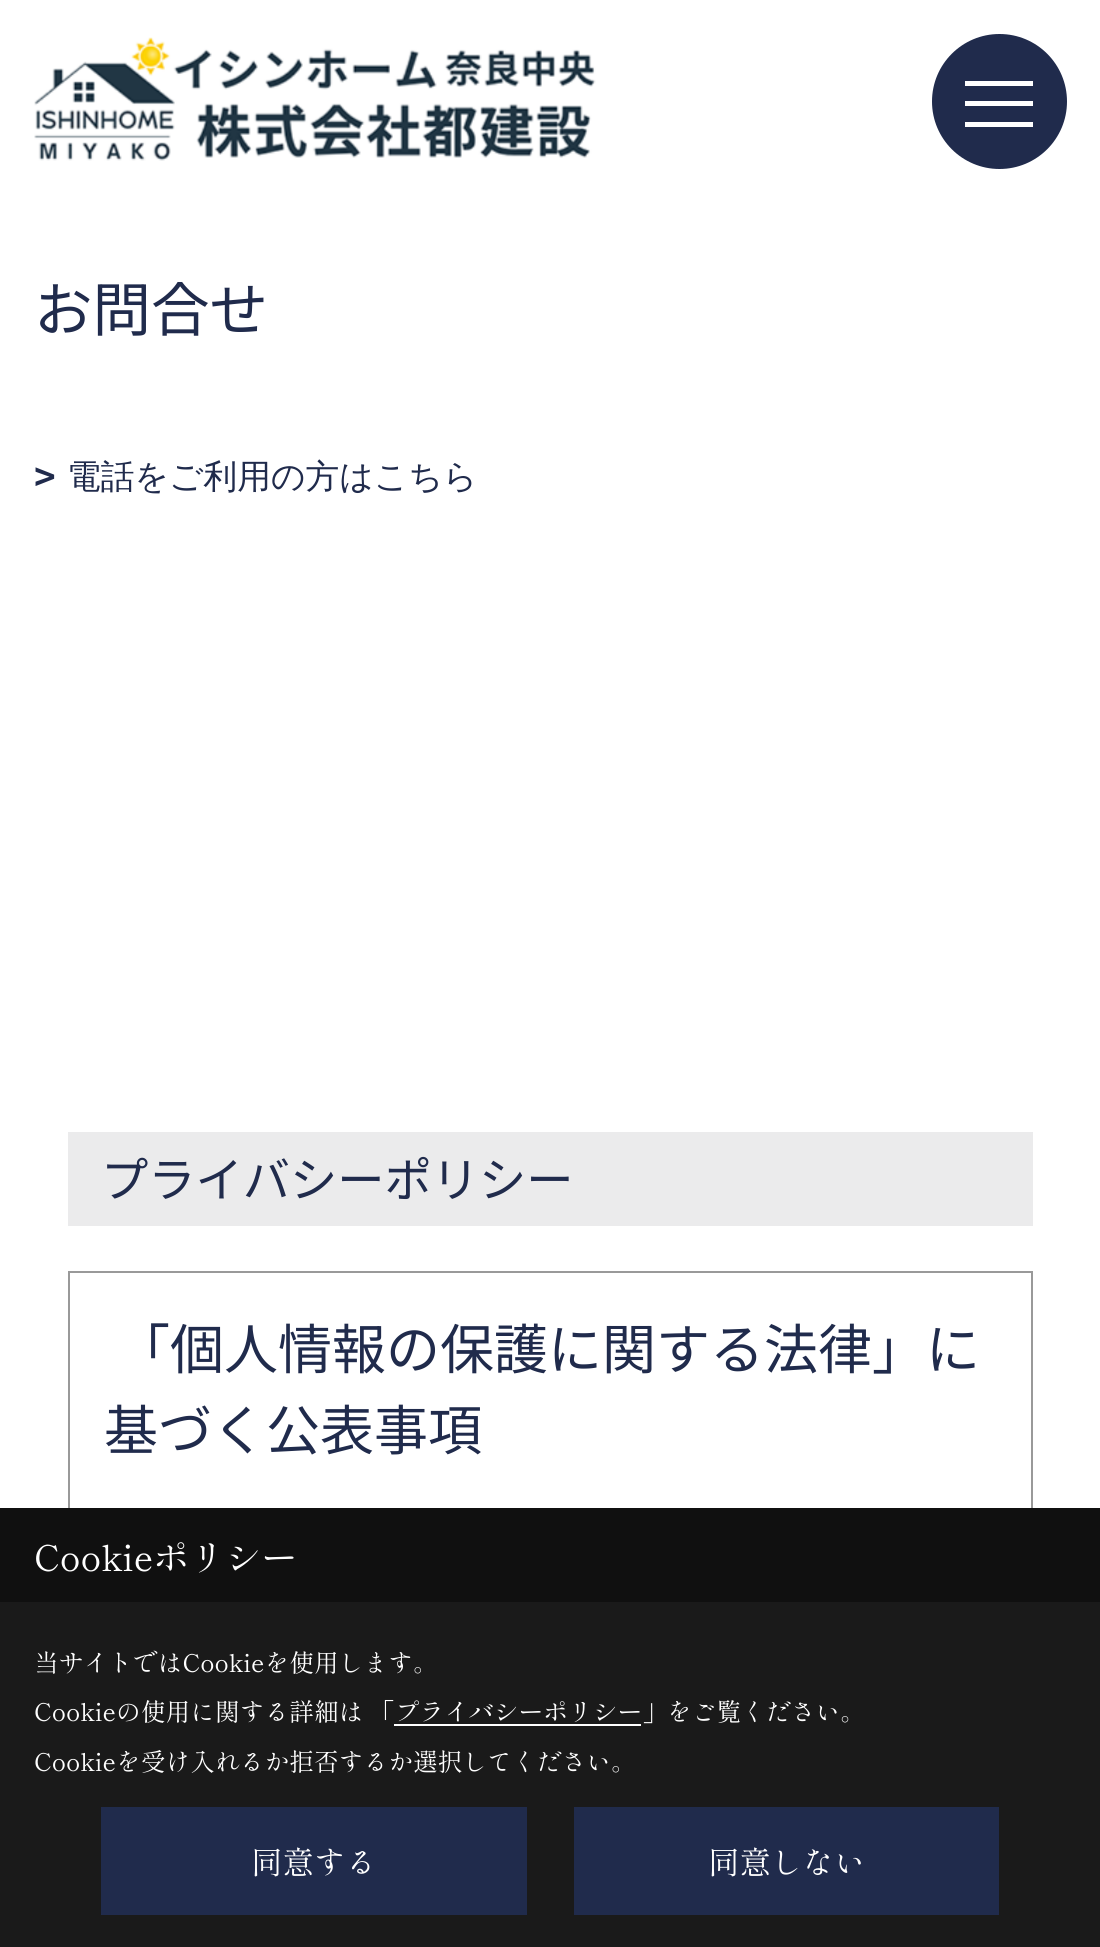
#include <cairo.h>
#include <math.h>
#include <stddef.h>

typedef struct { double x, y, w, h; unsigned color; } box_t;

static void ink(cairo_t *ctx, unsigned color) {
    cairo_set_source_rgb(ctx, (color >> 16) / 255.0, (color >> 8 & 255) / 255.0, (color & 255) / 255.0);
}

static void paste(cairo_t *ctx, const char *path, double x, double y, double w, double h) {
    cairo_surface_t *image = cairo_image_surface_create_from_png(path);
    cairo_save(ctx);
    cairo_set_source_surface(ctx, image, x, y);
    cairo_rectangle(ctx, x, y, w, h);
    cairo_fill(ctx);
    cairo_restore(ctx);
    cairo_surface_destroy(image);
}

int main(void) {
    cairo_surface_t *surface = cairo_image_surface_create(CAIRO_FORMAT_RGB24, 1100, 1947);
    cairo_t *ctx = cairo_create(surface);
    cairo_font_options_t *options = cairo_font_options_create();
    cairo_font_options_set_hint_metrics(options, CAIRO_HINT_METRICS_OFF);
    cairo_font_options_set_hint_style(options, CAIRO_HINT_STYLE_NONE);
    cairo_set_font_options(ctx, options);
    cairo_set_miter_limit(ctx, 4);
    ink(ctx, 0xFFFFFF);
    cairo_paint(ctx);
    paste(ctx, "media/1.png", 34, 37, 562, 124);
    ink(ctx, 0x202B4C);
    cairo_arc(ctx, 999.5, 101.5, 67.5, 0, 2 * M_PI);
    cairo_fill(ctx);
    {
        static const box_t items[] = {
            {965, 81, 68, 5, 0xFFFFFF},
            {965, 101, 68, 5, 0xFFFFFF},
            {965, 122, 68, 5, 0xFFFFFF},
        };
        for (size_t i = 0; i < sizeof items / sizeof *items; i++) {
            ink(ctx, items[i].color);
            cairo_rectangle(ctx, items[i].x, items[i].y, items[i].w, items[i].h);
            cairo_fill(ctx);
        }
    }
    cairo_select_font_face(ctx, "Noto Sans JP Thin", CAIRO_FONT_SLANT_NORMAL, CAIRO_FONT_WEIGHT_NORMAL);
    cairo_set_font_size(ctx, 58.5);
    ink(ctx, 0x202B4C);
    cairo_move_to(ctx, 34, 331);
    cairo_show_text(ctx, "お問合せ");
    cairo_select_font_face(ctx, "DejaVu Sans Mono", CAIRO_FONT_SLANT_NORMAL, CAIRO_FONT_WEIGHT_BOLD);
    cairo_set_font_size(ctx, 36);
    cairo_move_to(ctx, 34, 488);
    cairo_show_text(ctx, ">");
    cairo_select_font_face(ctx, "WenQuanYi Zen Hei Medium", CAIRO_FONT_SLANT_NORMAL, CAIRO_FONT_WEIGHT_NORMAL);
    cairo_set_font_size(ctx, 33.75);
    cairo_move_to(ctx, 67, 488);
    cairo_show_text(ctx, "電話をご利用の方はこちら");
    ink(ctx, 0xEBEBEC);
    cairo_rectangle(ctx, 68, 1132, 965, 94);
    cairo_fill(ctx);
    cairo_select_font_face(ctx, "Noto Sans JP Thin", CAIRO_FONT_SLANT_NORMAL, CAIRO_FONT_WEIGHT_NORMAL);
    cairo_set_font_size(ctx, 47.25);
    ink(ctx, 0x202B4C);
    cairo_move_to(ctx, 101, 1197);
    cairo_show_text(ctx, "プライバシーポリシー");
    cairo_rectangle(ctx, 69, 1272, 963, 520);
    ink(ctx, 0x999999);
    cairo_stroke(ctx);
    cairo_set_font_size(ctx, 54);
    ink(ctx, 0x202B4C);
    cairo_move_to(ctx, 116, 1369);
    cairo_show_text(ctx, "「個人情報の保護に関する法律」に");
    cairo_move_to(ctx, 104, 1450);
    cairo_show_text(ctx, "基づく公表事項");
    ink(ctx, 0x101010);
    cairo_rectangle(ctx, 0, 1508, 1100, 94);
    cairo_fill(ctx);
    cairo_select_font_face(ctx, "Shippori Mincho", CAIRO_FONT_SLANT_NORMAL, CAIRO_FONT_WEIGHT_NORMAL);
    cairo_set_font_size(ctx, 36);
    ink(ctx, 0xFFFFFF);
    cairo_move_to(ctx, 34, 1571);
    cairo_show_text(ctx, "Cookieポリシー");
    ink(ctx, 0x1A1A1A);
    cairo_rectangle(ctx, 0, 1602, 1100, 345);
    cairo_fill(ctx);
    cairo_set_font_size(ctx, 24.75);
    ink(ctx, 0xFFFFFF);
    cairo_move_to(ctx, 34, 1672);
    cairo_show_text(ctx, "当サイトではCookieを使用します。");
    cairo_move_to(ctx, 34, 1721);
    cairo_show_text(ctx, "Cookieの使用に関する詳細は 「プライバシーポリシー」をご覧ください。");
    cairo_rectangle(ctx, 394, 1724, 247, 2);
    cairo_fill(ctx);
    cairo_move_to(ctx, 34, 1771);
    cairo_show_text(ctx, "Cookieを受け入れるか拒否するか選択してください。");
    ink(ctx, 0x202B4C);
    cairo_rectangle(ctx, 101, 1807, 426, 108);
    cairo_fill(ctx);
    cairo_set_font_size(ctx, 31.5);
    ink(ctx, 0xFFFFFF);
    cairo_move_to(ctx, 251, 1874);
    cairo_show_text(ctx, "同意する");
    ink(ctx, 0x202B4C);
    cairo_rectangle(ctx, 574, 1807, 425, 108);
    cairo_fill(ctx);
    ink(ctx, 0xFFFFFF);
    cairo_move_to(ctx, 708, 1874);
    cairo_show_text(ctx, "同意しない");
    cairo_surface_write_to_png(surface, "image.png");
    cairo_font_options_destroy(options);
    cairo_destroy(ctx);
    cairo_surface_destroy(surface);
    return 0;
}
